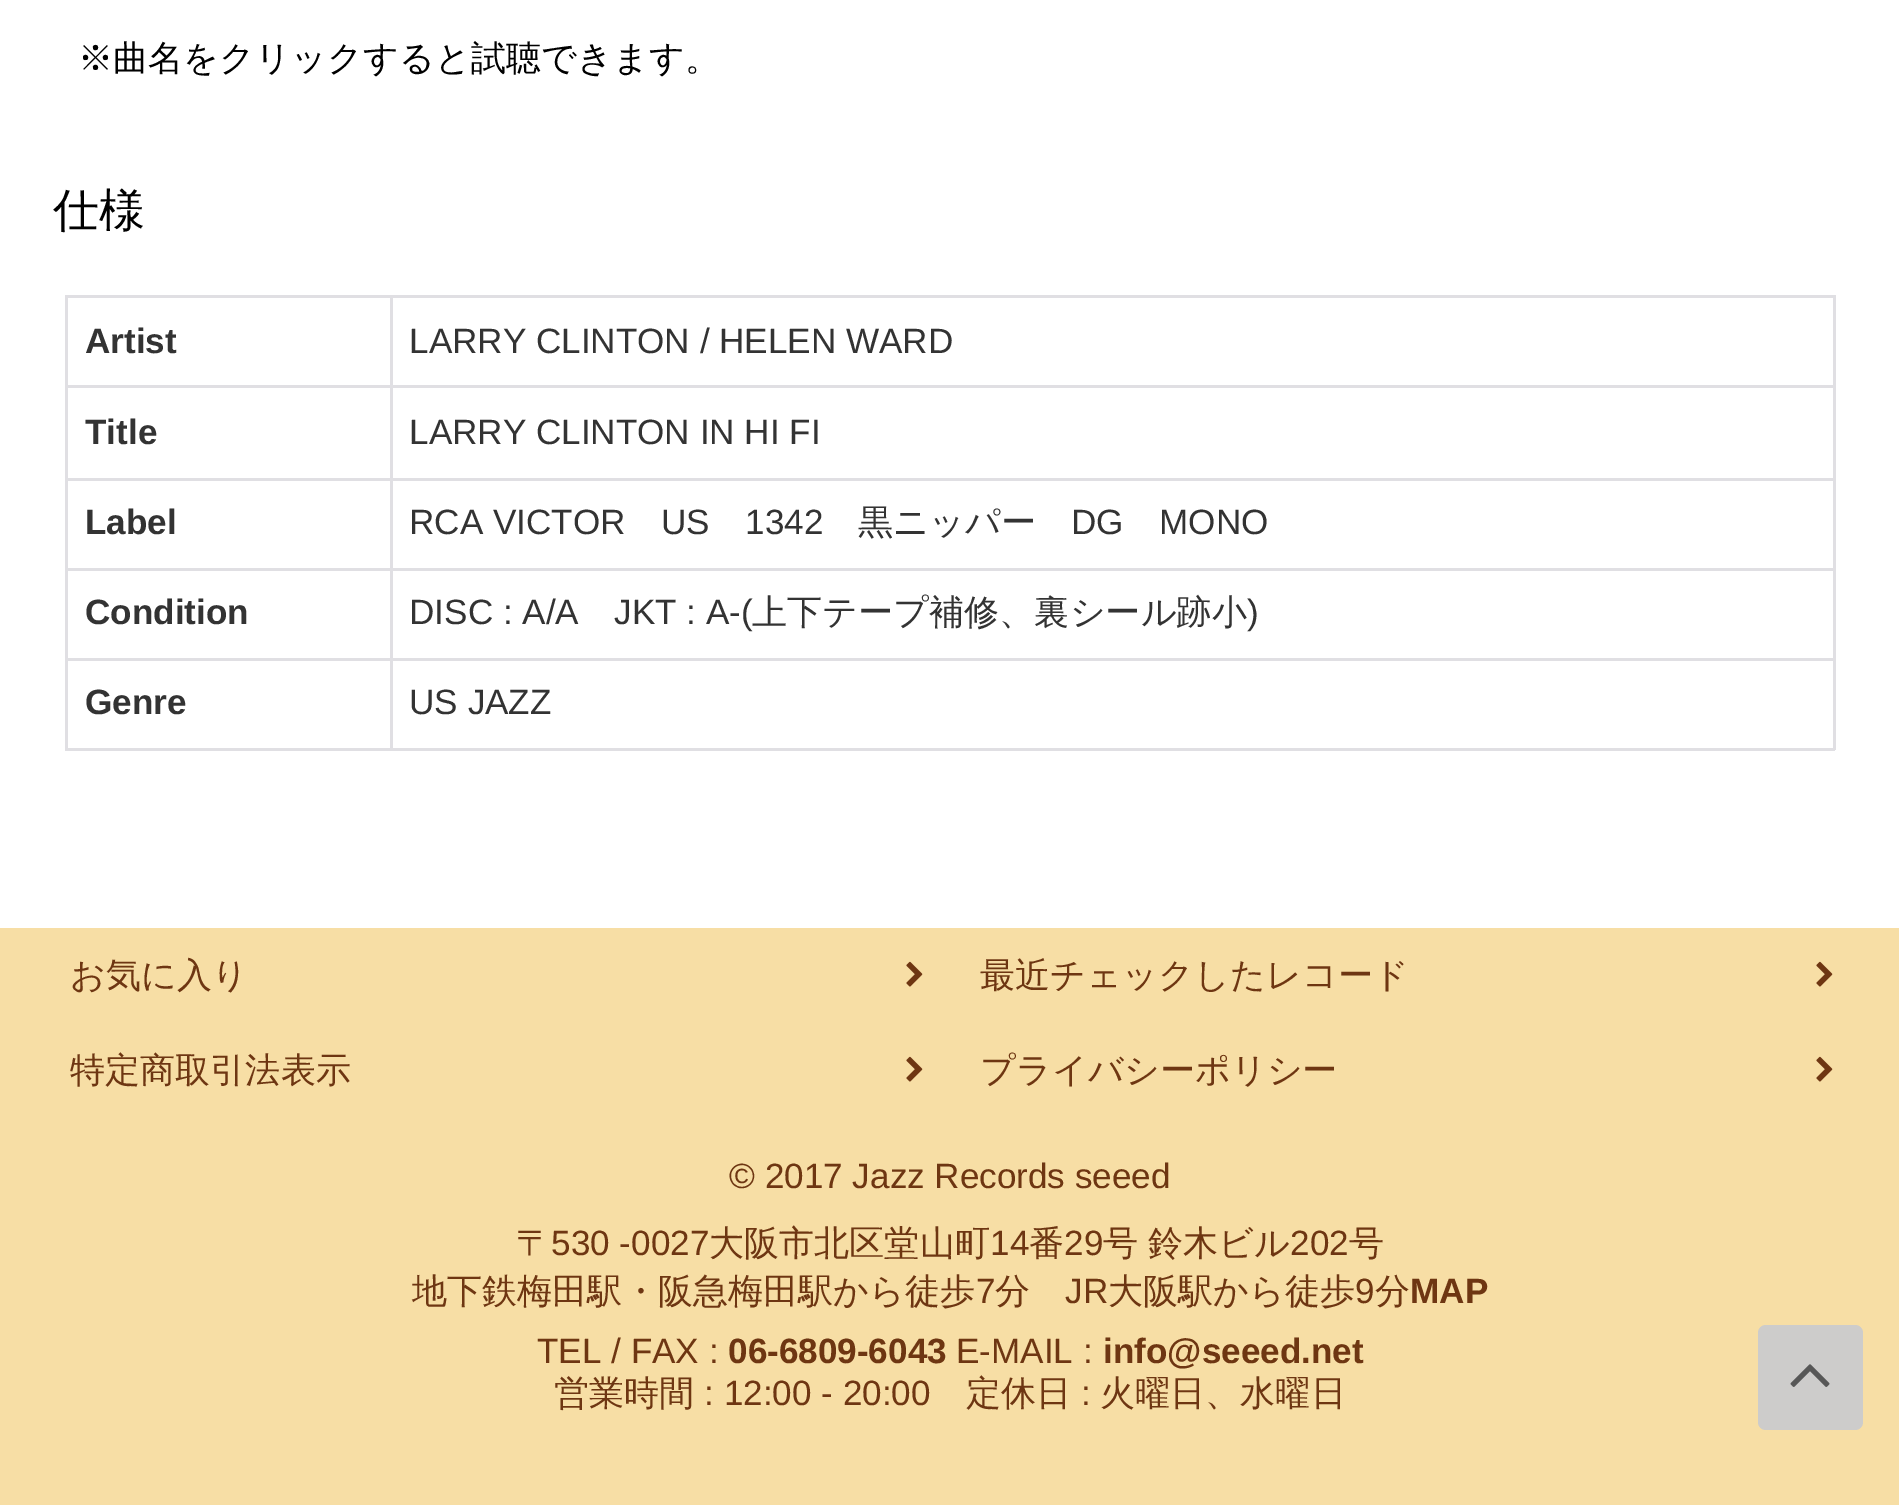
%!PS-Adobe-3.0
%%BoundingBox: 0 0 1899 1505
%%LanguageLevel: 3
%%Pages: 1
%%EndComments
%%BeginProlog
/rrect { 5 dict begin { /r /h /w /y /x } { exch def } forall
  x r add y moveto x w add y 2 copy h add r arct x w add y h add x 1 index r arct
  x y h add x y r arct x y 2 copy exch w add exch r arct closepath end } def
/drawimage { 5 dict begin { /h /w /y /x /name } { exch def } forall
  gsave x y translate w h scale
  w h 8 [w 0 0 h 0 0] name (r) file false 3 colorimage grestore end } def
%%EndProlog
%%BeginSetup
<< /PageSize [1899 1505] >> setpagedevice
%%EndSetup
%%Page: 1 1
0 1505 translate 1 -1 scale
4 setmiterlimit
1 setgray
0 0 1899 1505 rectfill
0.878 0.875 0.89 setrgbcolor
390 295 1445 3 rectfill
390 385 1445 3 rectfill
390 478 1445 3 rectfill
390 568 1445 3 rectfill
390 658 1445 3 rectfill
1833 658 3 92 rectfill
390 748 1445 3 rectfill
390 658 3 92 rectfill
65 658 328 3 rectfill
390 568 3 92 rectfill
65 568 328 3 rectfill
390 478 3 92 rectfill
65 478 328 3 rectfill
390 385 3 95 rectfill
65 385 328 3 rectfill
390 295 3 93 rectfill
65 295 328 3 rectfill
65 748 328 3 rectfill
65 658 3 92 rectfill
65 568 3 92 rectfill
65 478 3 92 rectfill
65 385 3 95 rectfill
65 295 3 93 rectfill
1833 568 3 92 rectfill
1833 478 3 92 rectfill
1833 385 3 95 rectfill
1833 295 3 93 rectfill
0.969 0.871 0.647 setrgbcolor
0 928 1899 577 rectfill
(images/1.raw) 906 961 17 26 drawimage
(images/1.raw) 1816 961 17 26 drawimage
(images/1.raw) 906 1056 17 26 drawimage
(images/1.raw) 1816 1056 17 26 drawimage
0.804 0.8 0.796 setrgbcolor
1758 1325 105 105 8 rrect fill
(images/2.raw) 1790 1364 40 23 drawimage
/WenQuanYiZenHei-Medium [35.1 0 0 -35.1 0 0] selectfont
0 setgray
78 70 moveto (※曲名をクリックすると試聴できます。) show
/WenQuanYiZenHei-Medium [46 0 0 -46 0 0] selectfont
53 226 moveto (仕様) show
/LiberationSans-Bold [35.1 0 0 -35.1 0 0] selectfont
0.2 setgray
85 353 moveto (Artist) show
/LiberationSans-Regular [35.1 0 0 -35.1 0 0] selectfont
409 353 moveto (LARRY CLINTON / HELEN WARD) show
/LiberationSans-Bold [35.1 0 0 -35.1 0 0] selectfont
85 444 moveto (Title) show
/LiberationSans-Regular [35.1 0 0 -35.1 0 0] selectfont
409 444 moveto (LARRY CLINTON IN HI FI) show
/LiberationSans-Bold [35.1 0 0 -35.1 0 0] selectfont
85 534 moveto (Label) show
/LiberationSans-Regular [35.1 0 0 -35.1 0 0] selectfont
409 534 moveto (RCA VICTOR) show
661 534 moveto (US) show
745 534 moveto (1342) show
/WenQuanYiZenHei-Medium [35.1 0 0 -35.1 0 0] selectfont
858 534 moveto (黒ニッパー) show
/LiberationSans-Regular [35.1 0 0 -35.1 0 0] selectfont
1071 534 moveto (DG) show
1159 534 moveto (MONO) show
/LiberationSans-Bold [35.1 0 0 -35.1 0 0] selectfont
85 624 moveto (Condition) show
/LiberationSans-Regular [35.1 0 0 -35.1 0 0] selectfont
409 624 moveto (DISC : A/A) show
614 624 moveto (JKT : A-\() show
/WenQuanYiZenHei-Medium [35.1 0 0 -35.1 0 0] selectfont
752 624 moveto (上下テープ補修、裏シール跡小) show
/LiberationSans-Regular [35.1 0 0 -35.1 0 0] selectfont
1247 624 moveto (\)) show
/LiberationSans-Bold [35.1 0 0 -35.1 0 0] selectfont
85 714 moveto (Genre) show
/LiberationSans-Regular [35.1 0 0 -35.1 0 0] selectfont
409 714 moveto (US JAZZ) show
/WenQuanYiZenHei-Medium [35.1 0 0 -35.1 0 0] selectfont
0.431 0.212 0.071 setrgbcolor
70 987 moveto (お気に入り) show
980 987 moveto (最近チェックしたレコード) show
70 1082 moveto (特定商取引法表示) show
980 1082 moveto (プライバシーポリシー) show
/LiberationSans-Regular [35.1 0 0 -35.1 0 0] selectfont
729 1188 moveto (© 2017 Jazz Records seeed) show
/WenQuanYiZenHei-Medium [35.1 0 0 -35.1 0 0] selectfont
516 1255 moveto (〒) show
/LiberationSans-Regular [35.1 0 0 -35.1 0 0] selectfont
551 1255 moveto (530 -0027) show
/WenQuanYiZenHei-Medium [35.1 0 0 -35.1 0 0] selectfont
709 1255 moveto (大阪市北区堂山町) show
/LiberationSans-Regular [35.1 0 0 -35.1 0 0] selectfont
990 1255 moveto (14) show
/WenQuanYiZenHei-Medium [35.1 0 0 -35.1 0 0] selectfont
1029 1255 moveto (番) show
/LiberationSans-Regular [35.1 0 0 -35.1 0 0] selectfont
1064 1255 moveto (29) show
/WenQuanYiZenHei-Medium [35.1 0 0 -35.1 0 0] selectfont
1103 1255 moveto -1 0 32 (号 鈴木ビル) widthshow
/LiberationSans-Regular [35.1 0 0 -35.1 0 0] selectfont
1290 1255 moveto (202) show
/WenQuanYiZenHei-Medium [35.1 0 0 -35.1 0 0] selectfont
1349 1255 moveto (号) show
412 1303 moveto (地下鉄梅田駅・阪急梅田駅から徒歩) show
/LiberationSans-Regular [35.1 0 0 -35.1 0 0] selectfont
976 1303 moveto (7) show
/WenQuanYiZenHei-Medium [35.1 0 0 -35.1 0 0] selectfont
995 1303 moveto (分) show
/LiberationSans-Regular [35.1 0 0 -35.1 0 0] selectfont
1065 1303 moveto (JR) show
/WenQuanYiZenHei-Medium [35.1 0 0 -35.1 0 0] selectfont
1108 1303 moveto (大阪駅から徒歩) show
/LiberationSans-Regular [35.1 0 0 -35.1 0 0] selectfont
1355 1303 moveto (9) show
/WenQuanYiZenHei-Medium [35.1 0 0 -35.1 0 0] selectfont
1375 1303 moveto (分) show
/LiberationSans-Bold [35.1 0 0 -35.1 0 0] selectfont
1410 1303 moveto (MAP) show
/LiberationSans-Regular [35.1 0 0 -35.1 0 0] selectfont
537 1363 moveto (TEL / FAX :) show
/LiberationSans-Bold [35.1 0 0 -35.1 0 0] selectfont
728 1363 moveto (06-6809-6043) show
/LiberationSans-Regular [35.1 0 0 -35.1 0 0] selectfont
956 1363 moveto (E-MAIL :) show
/LiberationSans-Bold [35.1 0 0 -35.1 0 0] selectfont
1103 1363 moveto (info@seeed.net) show
/WenQuanYiZenHei-Medium [35.1 0 0 -35.1 0 0] selectfont
554 1405 moveto (営業時間) show
/LiberationSans-Regular [35.1 0 0 -35.1 0 0] selectfont
704 1405 moveto (: 12:00 - 20:00) show
/WenQuanYiZenHei-Medium [35.1 0 0 -35.1 0 0] selectfont
966 1405 moveto (定休日) show
/LiberationSans-Regular [35.1 0 0 -35.1 0 0] selectfont
1081 1405 moveto (:) show
/WenQuanYiZenHei-Medium [35.1 0 0 -35.1 0 0] selectfont
1100 1405 moveto (火曜日、水曜日) show
showpage
%%EOF
